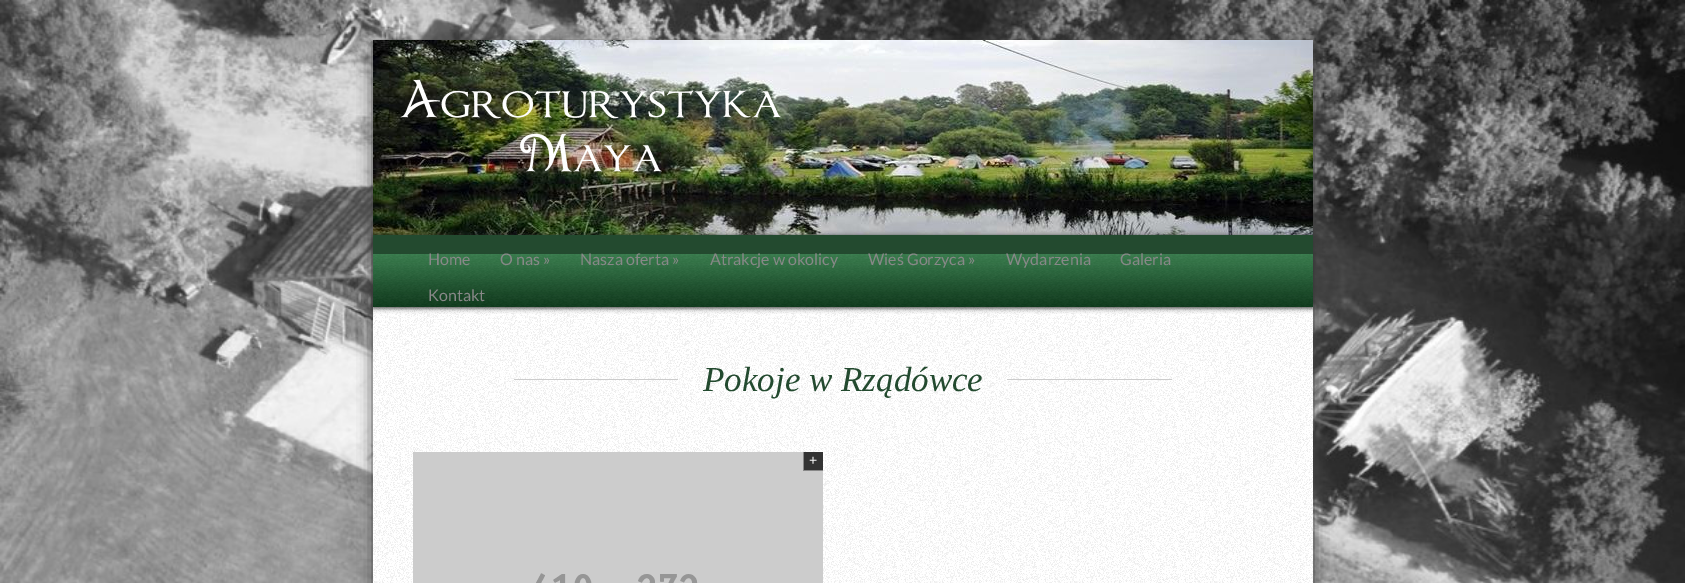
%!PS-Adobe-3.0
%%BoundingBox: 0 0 1685 583
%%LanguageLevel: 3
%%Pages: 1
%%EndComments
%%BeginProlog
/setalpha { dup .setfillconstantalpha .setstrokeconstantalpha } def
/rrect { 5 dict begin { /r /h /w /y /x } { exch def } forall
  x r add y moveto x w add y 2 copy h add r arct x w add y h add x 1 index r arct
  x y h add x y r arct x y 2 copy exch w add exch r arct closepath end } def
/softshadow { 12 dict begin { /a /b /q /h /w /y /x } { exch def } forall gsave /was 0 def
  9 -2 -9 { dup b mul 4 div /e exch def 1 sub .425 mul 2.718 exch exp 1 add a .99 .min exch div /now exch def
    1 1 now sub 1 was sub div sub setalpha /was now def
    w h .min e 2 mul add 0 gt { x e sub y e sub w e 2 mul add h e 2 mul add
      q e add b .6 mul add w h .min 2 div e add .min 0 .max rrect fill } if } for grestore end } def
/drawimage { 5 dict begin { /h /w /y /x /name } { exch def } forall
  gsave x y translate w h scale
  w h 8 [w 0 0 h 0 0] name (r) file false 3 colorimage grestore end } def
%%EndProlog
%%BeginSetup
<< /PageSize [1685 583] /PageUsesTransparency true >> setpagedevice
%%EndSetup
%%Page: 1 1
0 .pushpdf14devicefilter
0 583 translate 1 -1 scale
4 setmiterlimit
1 setgray
0 0 1685 583 rectfill
(images/1.raw) 0 0 1685 583 drawimage
0.267 setgray
373 45 940 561 0 7.5 1 softshadow
(images/2.raw) 373 307 940 276 drawimage
(images/3.raw) 373 40 940 195 drawimage
(images/4.raw) 400 79 382 93 drawimage
0.2 setgray
373 236 940 72 0 2.5 1 softshadow
0.137 0.29 0.184 setrgbcolor
373 235 940 19 rectfill
(images/5.raw) 373 254 940 53 drawimage
0.8 setgray
514 379 658 1 rectfill
(images/6.raw) 678 362 329 35 drawimage
(images/7.raw) 413 452 410 131 drawimage
0.2 setgray
804 452 19 18 rectfill
0.533 setgray
803 470 20 1 rectfill
803 452 1 19 rectfill
/Lato-Regular [16 0 0 -16 0 0] selectfont
428 265 moveto (Home) show
500 265 moveto (O nas ») show
580 265 moveto (Nasza oferta ») show
710 265 moveto (Atrakcje w okolicy) show
868 265 moveto (Wieś Gorzyca ») show
1006 265 moveto (Wydarzenia) show
1120 265 moveto (Galeria) show
428 301 moveto (Kontakt) show
/LiberationSerif-Italic [35 0 0 -35 0 0] selectfont
0.137 0.29 0.184 setrgbcolor
703 391 moveto (Pokoje w Rządówce) show
/Lato-Regular [14 0 0 -14 0 0] selectfont
1 setgray
809 465 moveto (+) show
.poppdf14devicefilter showpage
%%EOF
